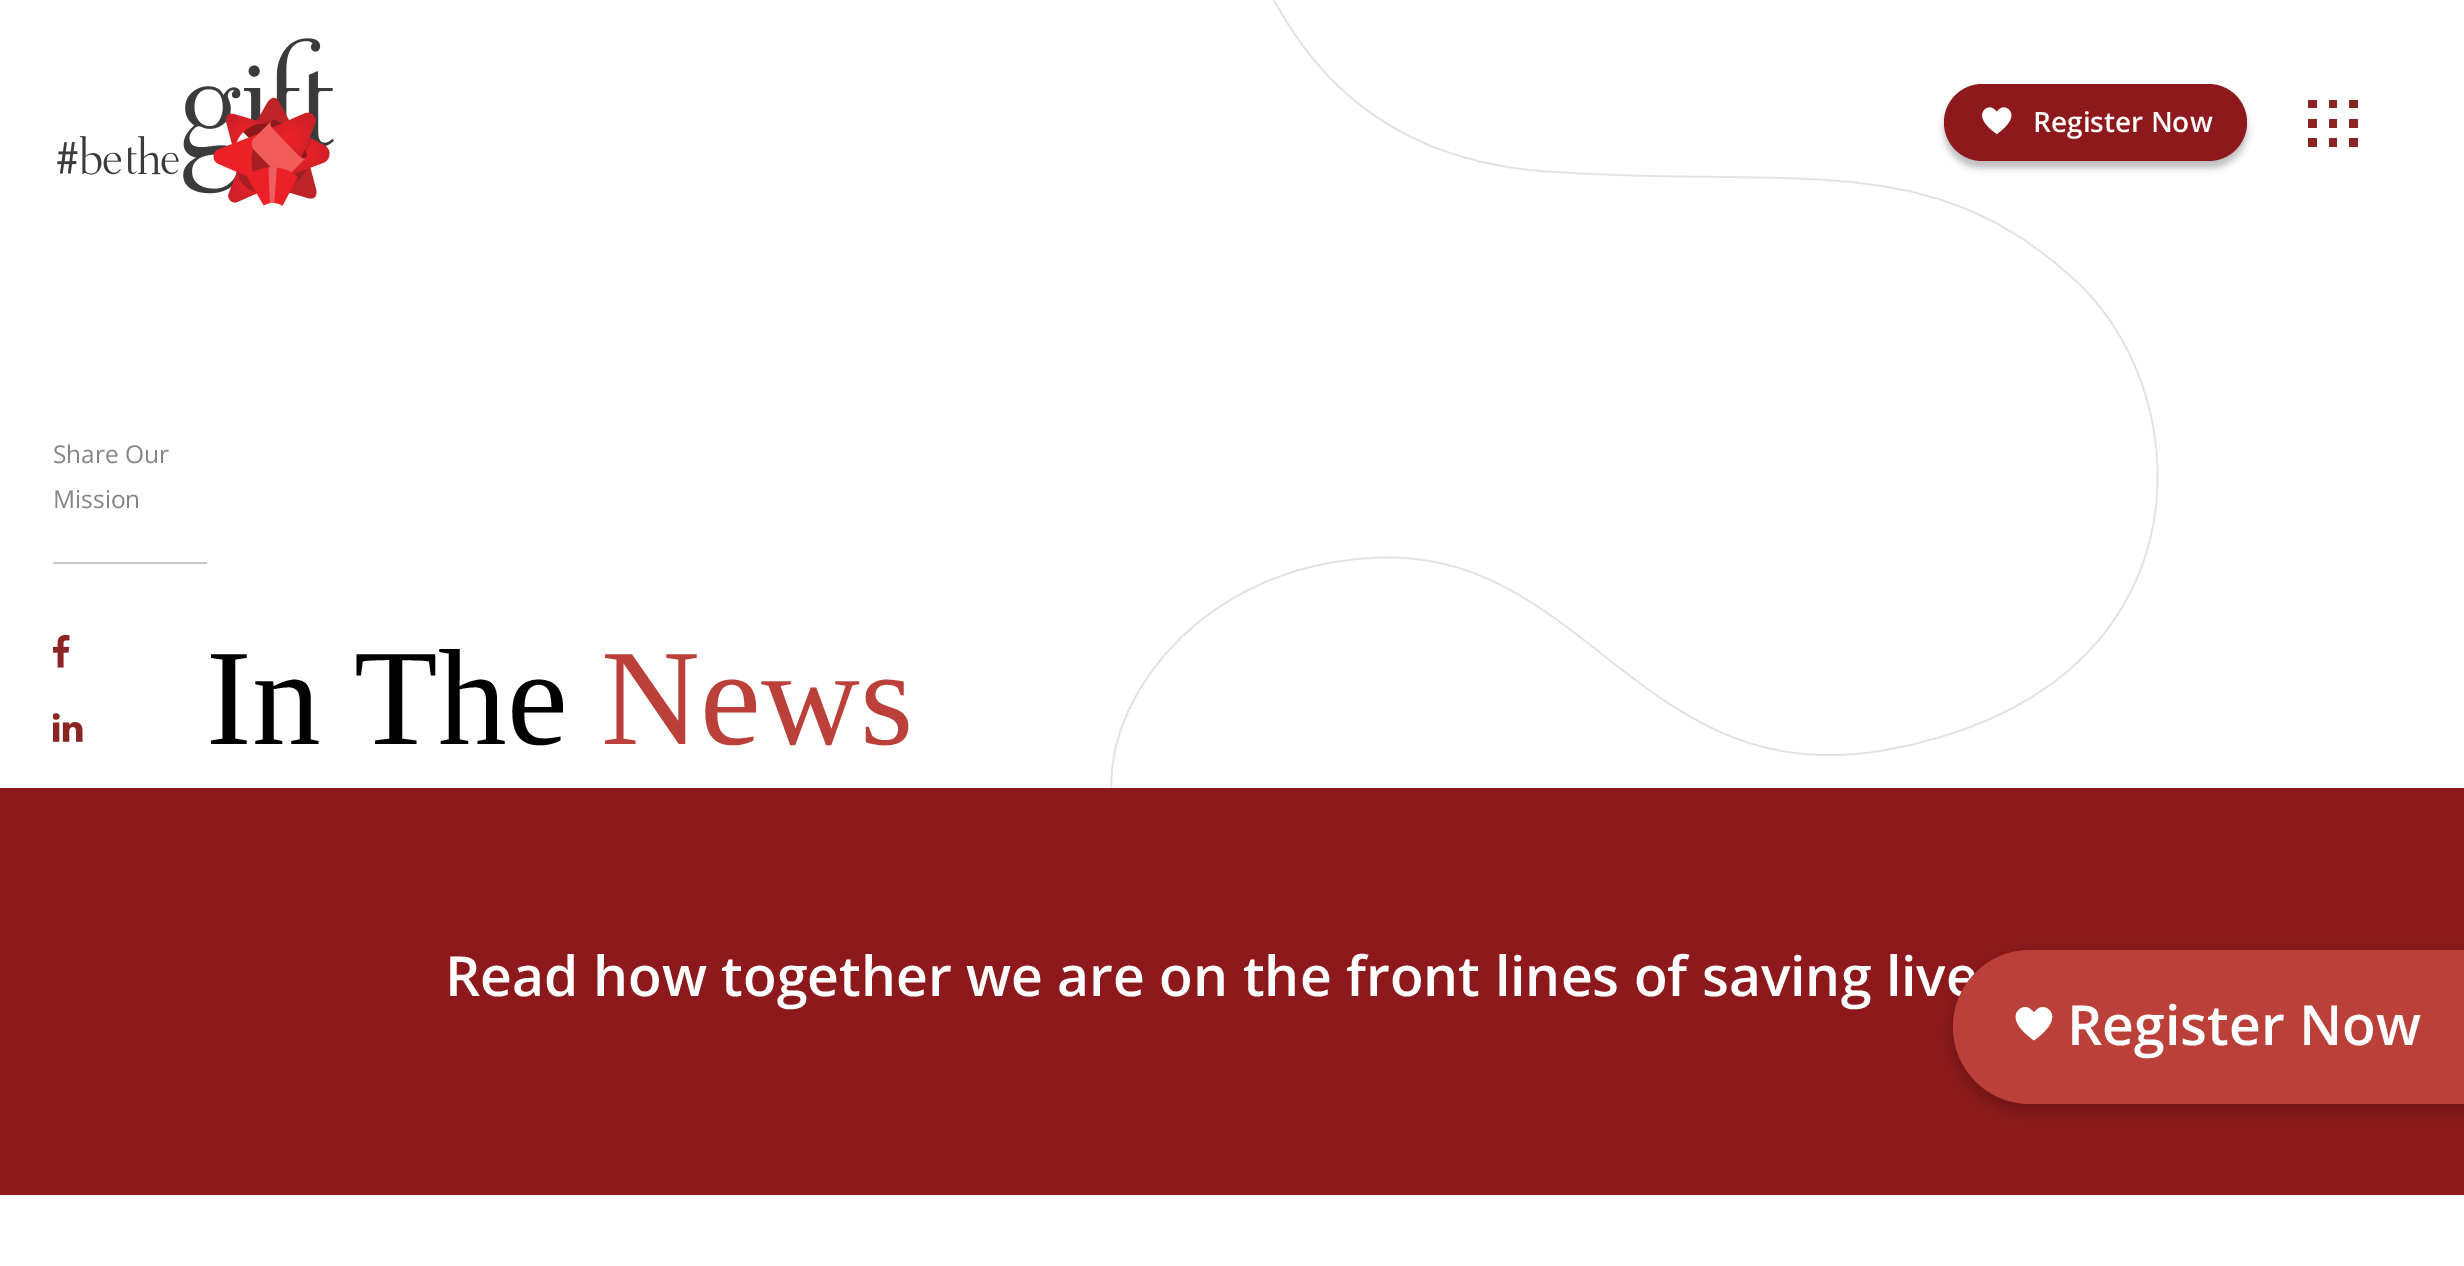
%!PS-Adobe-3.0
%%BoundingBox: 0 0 2464 1266
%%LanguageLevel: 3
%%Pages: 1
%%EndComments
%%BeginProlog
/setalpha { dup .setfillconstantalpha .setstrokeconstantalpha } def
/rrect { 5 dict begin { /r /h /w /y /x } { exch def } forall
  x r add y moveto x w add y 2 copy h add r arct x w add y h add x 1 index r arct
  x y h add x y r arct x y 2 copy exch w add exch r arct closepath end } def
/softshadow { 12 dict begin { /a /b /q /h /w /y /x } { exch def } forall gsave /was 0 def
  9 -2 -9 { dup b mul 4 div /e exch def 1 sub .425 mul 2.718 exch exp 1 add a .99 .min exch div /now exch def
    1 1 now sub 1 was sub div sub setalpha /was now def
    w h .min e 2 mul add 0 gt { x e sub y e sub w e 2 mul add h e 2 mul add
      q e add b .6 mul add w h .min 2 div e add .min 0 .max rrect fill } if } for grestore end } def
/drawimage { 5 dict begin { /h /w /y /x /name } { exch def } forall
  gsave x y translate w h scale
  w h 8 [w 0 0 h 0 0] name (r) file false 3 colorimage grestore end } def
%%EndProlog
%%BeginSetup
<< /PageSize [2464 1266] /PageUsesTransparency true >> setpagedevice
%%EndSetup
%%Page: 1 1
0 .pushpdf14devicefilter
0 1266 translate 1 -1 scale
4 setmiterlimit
1 setgray
0 0 2464 1266 rectfill
0.886 setgray
1.7 setlinewidth
newpath 1111.5 787.5 moveto 1107.5 691.5 1211.5 557.5 1388.5 557.5 curveto 1587.5 557.5 1645.5 791 1882.5 750.5 curveto 2209.5 694 2202.5 402.5 2080 285 curveto 1932 143 1794 190 1541 171 curveto 1366 157.5 1301 48 1274 0.5 curveto stroke
(images/1.raw) 57 38 277 168 drawimage
0 setgray
1944 91 303 77 38.5 3.5 0.25 softshadow
0.553 0.098 0.11 setrgbcolor
1944 84 303 77 38.5 rrect fill
(images/2.raw) 1982 107 30 28 drawimage
0.553 0.141 0.141 setrgbcolor
2308 100 9 8 rectfill
2329 100 8 8 rectfill
2349 100 9 8 rectfill
2308 119 9 9 rectfill
2329 119 8 9 rectfill
2349 119 9 9 rectfill
2308 138 9 9 rectfill
2329 138 8 9 rectfill
2349 138 9 9 rectfill
0.776 setgray
53 562 154 2 rectfill
(images/3.raw) 53 635 17 33 drawimage
(images/4.raw) 53 713 30 29 drawimage
0.553 0.098 0.11 setrgbcolor
0 788 2464 407 rectfill
0 setgray
1953 957 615 154 77 9 0.25 softshadow
/OpenSans-SemiBold [28 0 0 -28 0 0] selectfont
1 setgray
2033 132 moveto (Register Now) show
/OpenSans-Regular [24.5 0 0 -24.5 0 0] selectfont
0.522 setgray
53 463 moveto (Share Our) show
53 508 moveto (Mission) show
/LiberationSerif-Regular [137 0 0 -137 0 0] selectfont
0 setgray
206 744 moveto (In The) show
0.737 0.251 0.227 setrgbcolor
601 744 moveto (News) show
/OpenSans-SemiBold [55.25 0 0 -55.25 0 0] selectfont
1 setgray
445 996 moveto (Read how together we are on the front lines of saving live) show
0.737 0.251 0.227 setrgbcolor
1953 950 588 154 77 rrect fill
(images/5.raw) 2015 1006 38 35 drawimage
1 setgray
2067 1045 moveto (Register Now) show
.poppdf14devicefilter showpage
%%EOF
